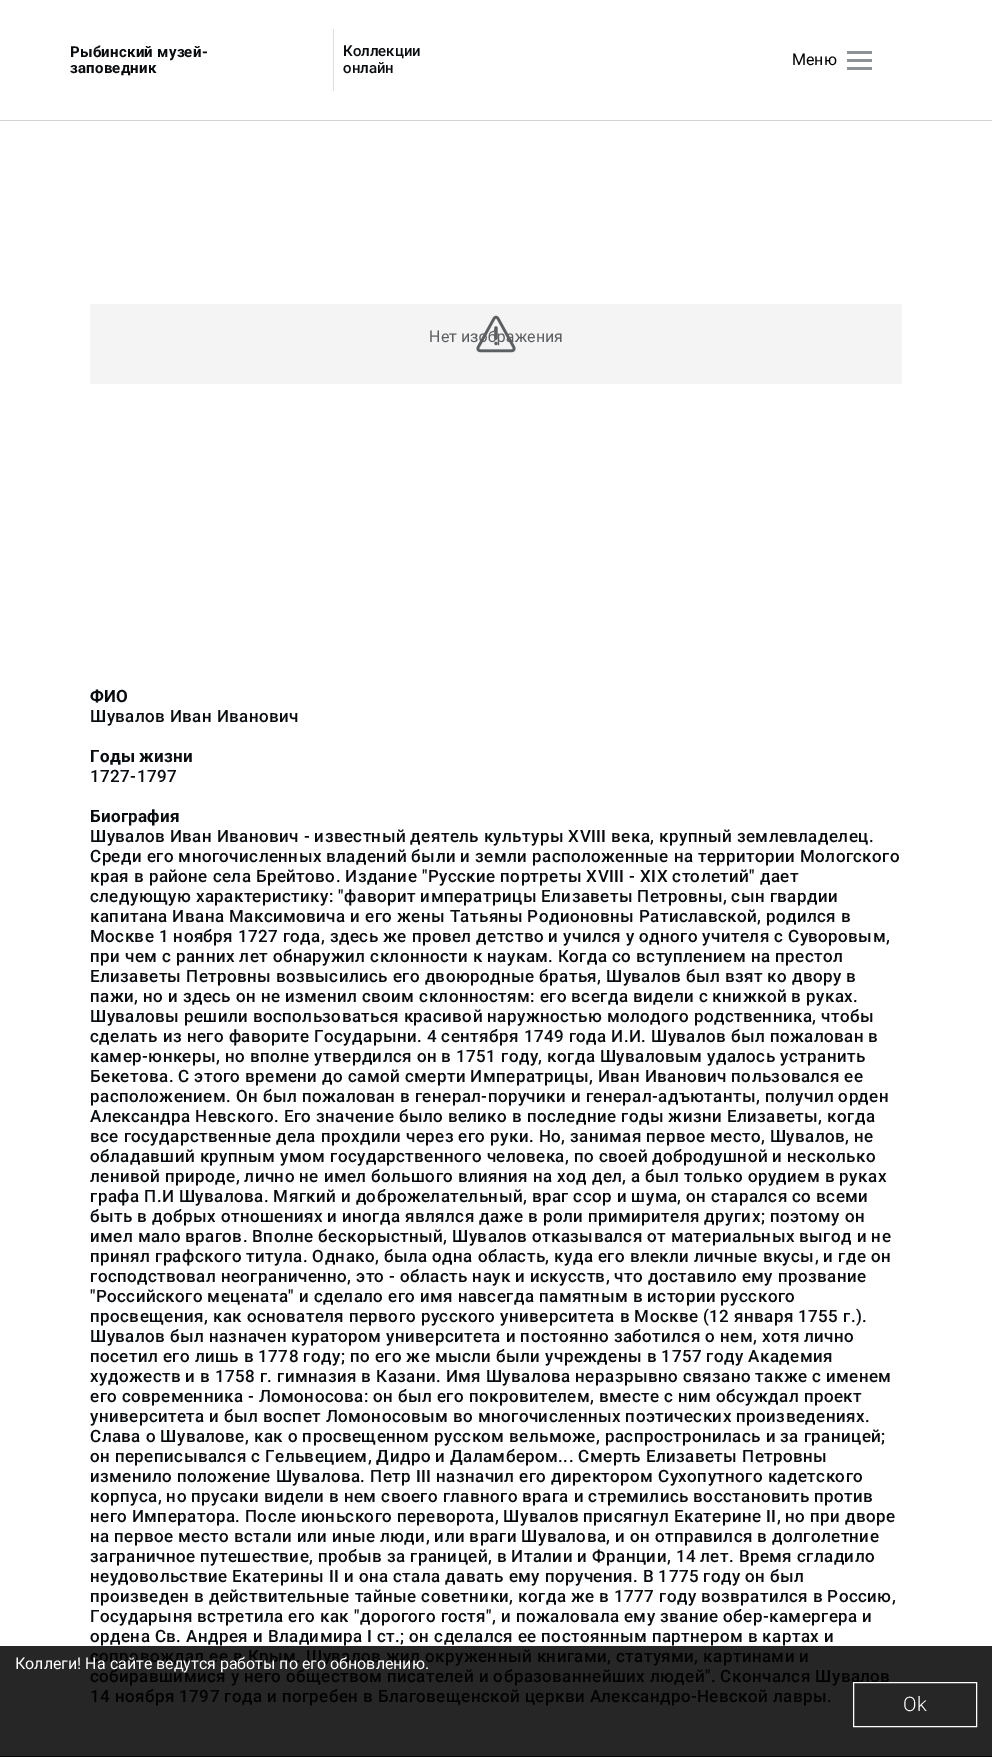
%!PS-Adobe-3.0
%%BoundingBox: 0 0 992 1757
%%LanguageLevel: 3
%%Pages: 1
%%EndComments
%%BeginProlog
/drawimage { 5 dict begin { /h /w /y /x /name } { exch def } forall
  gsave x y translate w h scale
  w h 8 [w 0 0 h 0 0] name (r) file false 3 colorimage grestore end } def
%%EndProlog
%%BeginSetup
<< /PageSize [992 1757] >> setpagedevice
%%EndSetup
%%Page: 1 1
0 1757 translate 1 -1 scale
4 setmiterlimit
1 setgray
0 0 992 1757 rectfill
0.149 setgray
0 1646 992 110 rectfill
0.827 setgray
0 120 992 1 rectfill
0.871 setgray
333 29 1 62 rectfill
0.557 0.569 0.584 setrgbcolor
847 51 25 3 rectfill
847 59 25 3 rectfill
847 67 25 3 rectfill
0.957 0.957 0.961 setrgbcolor
90 304 812 80 rectfill
0.02 setgray
0 1756 992 1 rectfill
/Roboto-Bold [15 0 0 -15 0 0] selectfont
0.039 0.051 0.063 setrgbcolor
70 57 moveto 0.25 0 (Рыбинский музей-) ashow
70 73 moveto 0.25 0 (заповедник) ashow
/Roboto-Medium [15 0 0 -15 0 0] selectfont
343 56 moveto (Коллекции) show
343 73 moveto (онлайн) show
/Roboto-Regular [16 0 0 -16 0 0] selectfont
0.008 setgray
792 65 moveto (Меню) show
0.361 0.373 0.384 setrgbcolor
429 342 moveto 0.1 0 (Нет изображения) ashow
(images/1.raw) 476 315 40 38 drawimage
/Roboto-Bold [17 0 0 -17 0 0] selectfont
0.039 0.051 0.063 setrgbcolor
90 702 moveto 0.25 0 (ФИО) ashow
/Roboto-Medium [17 0 0 -17 0 0] selectfont
90 722 moveto 0.42 0 (Шувалов Иван Иванович) ashow
/Roboto-Bold [17 0 0 -17 0 0] selectfont
90 762 moveto 0.25 0 (Годы жизни) ashow
/Roboto-Medium [17 0 0 -17 0 0] selectfont
90 782 moveto 0.42 0 (1727-1797) ashow
/Roboto-Bold [17 0 0 -17 0 0] selectfont
90 822 moveto 0.25 0 (Биография) ashow
/Roboto-Medium [17 0 0 -17 0 0] selectfont
90 842 moveto 0.42 0 (Шувалов Иван Иванович - известный деятель культуры XVIII века, крупный землевладелец.) ashow
90 862 moveto 0.42 0 (Среди его многочисленных владений были и земли расположенные на территории Мологского) ashow
90 882 moveto 0.42 0 (края в районе села Брейтово. Издание "Русские портреты XVIII - XIX столетий" дает) ashow
90 902 moveto 0.42 0 (следующую характеристику: "фаворит императрицы Елизаветы Петровны, сын гвардии) ashow
90 922 moveto 0.42 0 (капитана Ивана Максимовича и его жены Татьяны Родионовны Ратиславской, родился в) ashow
90 942 moveto 0.42 0 (Москве 1 ноября 1727 года, здесь же провел детство и учился у одного учителя с Суворовым,) ashow
90 962 moveto 0.42 0 (при чем с ранних лет обнаружил склонности к наукам. Когда со вступлением на престол) ashow
90 982 moveto 0.42 0 (Елизаветы Петровны возвысились его двоюродные братья, Шувалов был взят ко двору в) ashow
90 1002 moveto 0.42 0 (пажи, но и здесь он не изменил своим склонностям: его всегда видели с книжкой в руках.) ashow
90 1022 moveto 0.42 0 (Шуваловы решили воспользоваться красивой наружностью молодого родственника, чтобы) ashow
90 1042 moveto 0.42 0 (сделать из него фаворите Государыни. 4 сентября 1749 года И.И. Шувалов был пожалован в) ashow
90 1062 moveto 0.42 0 (камер-юнкеры, но вполне утвердился он в 1751 году, когда Шуваловым удалось устранить) ashow
90 1082 moveto 0.42 0 (Бекетова. С этого времени до самой смерти Императрицы, Иван Иванович пользовался ее) ashow
90 1102 moveto 0.42 0 (расположением. Он был пожалован в генерал-поручики и генерал-адъютанты, получил орден) ashow
90 1122 moveto 0.42 0 (Александра Невского. Его значение было велико в последние годы жизни Елизаветы, когда) ashow
90 1142 moveto 0.42 0 (все государственные дела прохдили через его руки. Но, занимая первое место, Шувалов, не) ashow
90 1162 moveto 0.42 0 (обладавший крупным умом государственного человека, по своей добродушной и несколько) ashow
90 1182 moveto 0.42 0 (ленивой природе, лично не имел большого влияния на ход дел, а был только орудием в руках) ashow
90 1202 moveto 0.42 0 (графа П.И Шувалова. Мягкий и доброжелательный, враг ссор и шума, он старался со всеми) ashow
90 1222 moveto 0.42 0 (быть в добрых отношениях и иногда являлся даже в роли примирителя других; поэтому он) ashow
90 1242 moveto 0.42 0 (имел мало врагов. Вполне бескорыстный, Шувалов отказывался от материальных выгод и не) ashow
90 1262 moveto 0.42 0 (принял графского титула. Однако, была одна область, куда его влекли личные вкусы, и где он) ashow
90 1282 moveto 0.42 0 (господствовал неограниченно, это - область наук и искусств, что доставило ему прозвание) ashow
90 1302 moveto 0.42 0 ("Российского мецената" и сделало его имя навсегда памятным в истории русского) ashow
90 1322 moveto 0.42 0 (просвещения, как основателя первого русского университета в Москве \(12 января 1755 г.\).) ashow
90 1342 moveto 0.42 0 (Шувалов был назначен куратором университета и постоянно заботился о нем, хотя лично) ashow
90 1362 moveto 0.42 0 (посетил его лишь в 1778 году; по его же мысли были учреждены в 1757 году Академия) ashow
90 1382 moveto 0.42 0 (художеств и в 1758 г. гимназия в Казани. Имя Шувалова неразрывно связано также с именем) ashow
90 1402 moveto 0.42 0 (его современника - Ломоносова: он был его покровителем, вместе с ним обсуждал проект) ashow
90 1422 moveto 0.42 0 (университета и был воспет Ломоносовым во многочисленных поэтических произведениях.) ashow
90 1442 moveto 0.42 0 (Слава о Шувалове, как о просвещенном русском вельможе, распростронилась и за границей;) ashow
90 1462 moveto 0.42 0 (он переписывался с Гельвецием, Дидро и Даламбером... Смерть Елизаветы Петровны) ashow
90 1482 moveto 0.42 0 (изменило положение Шувалова. Петр III назначил его директором Сухопутного кадетского) ashow
90 1502 moveto 0.42 0 (корпуса, но прусаки видели в нем своего главного врага и стремились восстановить против) ashow
90 1522 moveto 0.42 0 (него Императора. После июньского переворота, Шувалов присягнул Екатерине II, но при дворе) ashow
90 1542 moveto 0.42 0 (на первое место встали или иные люди, или враги Шувалова, и он отправился в долголетние) ashow
90 1562 moveto 0.42 0 (заграничное путешествие, пробыв за границей, в Италии и Франции, 14 лет. Время сгладило) ashow
90 1582 moveto 0.42 0 (неудовольствие Екатерины II и она стала давать ему поручения. В 1775 году он был) ashow
90 1602 moveto 0.42 0 (произведен в действительные тайные советники, когда же в 1777 году возвратился в Россию,) ashow
90 1622 moveto 0.42 0 (Государыня встретила его как "дорогого гостя", и пожаловала ему звание обер-камергера и) ashow
90 1642 moveto 0.42 0 (ордена Св. Андрея и Владимира I ст.; он сделался ее постоянным партнером в картах и) ashow
0.008 setgray
90 1662 moveto 0.42 0 (сопровождал ее в Крым. Шувалов жил окруженный книгами, статуями, картинами и) ashow
90 1682 moveto 0.42 0 (собиравшимися у него обществом писателей и образованнейших людей". Скончался Шувалов) ashow
90 1702 moveto 0.42 0 (14 ноября 1797 года и погребен в Благовещенской церкви Александро-Невской лавры.) ashow
/Roboto-Regular [16 0 0 -16 0 0] selectfont
1 setgray
15 1669 moveto (Коллеги! На сайте ведутся работы по его обновлению.) show
853.5 1682.5 123 44 rectstroke
/Roboto-Light [20 0 0 -20 0 0] selectfont
903 1711 moveto (Ok) show
showpage
%%EOF
